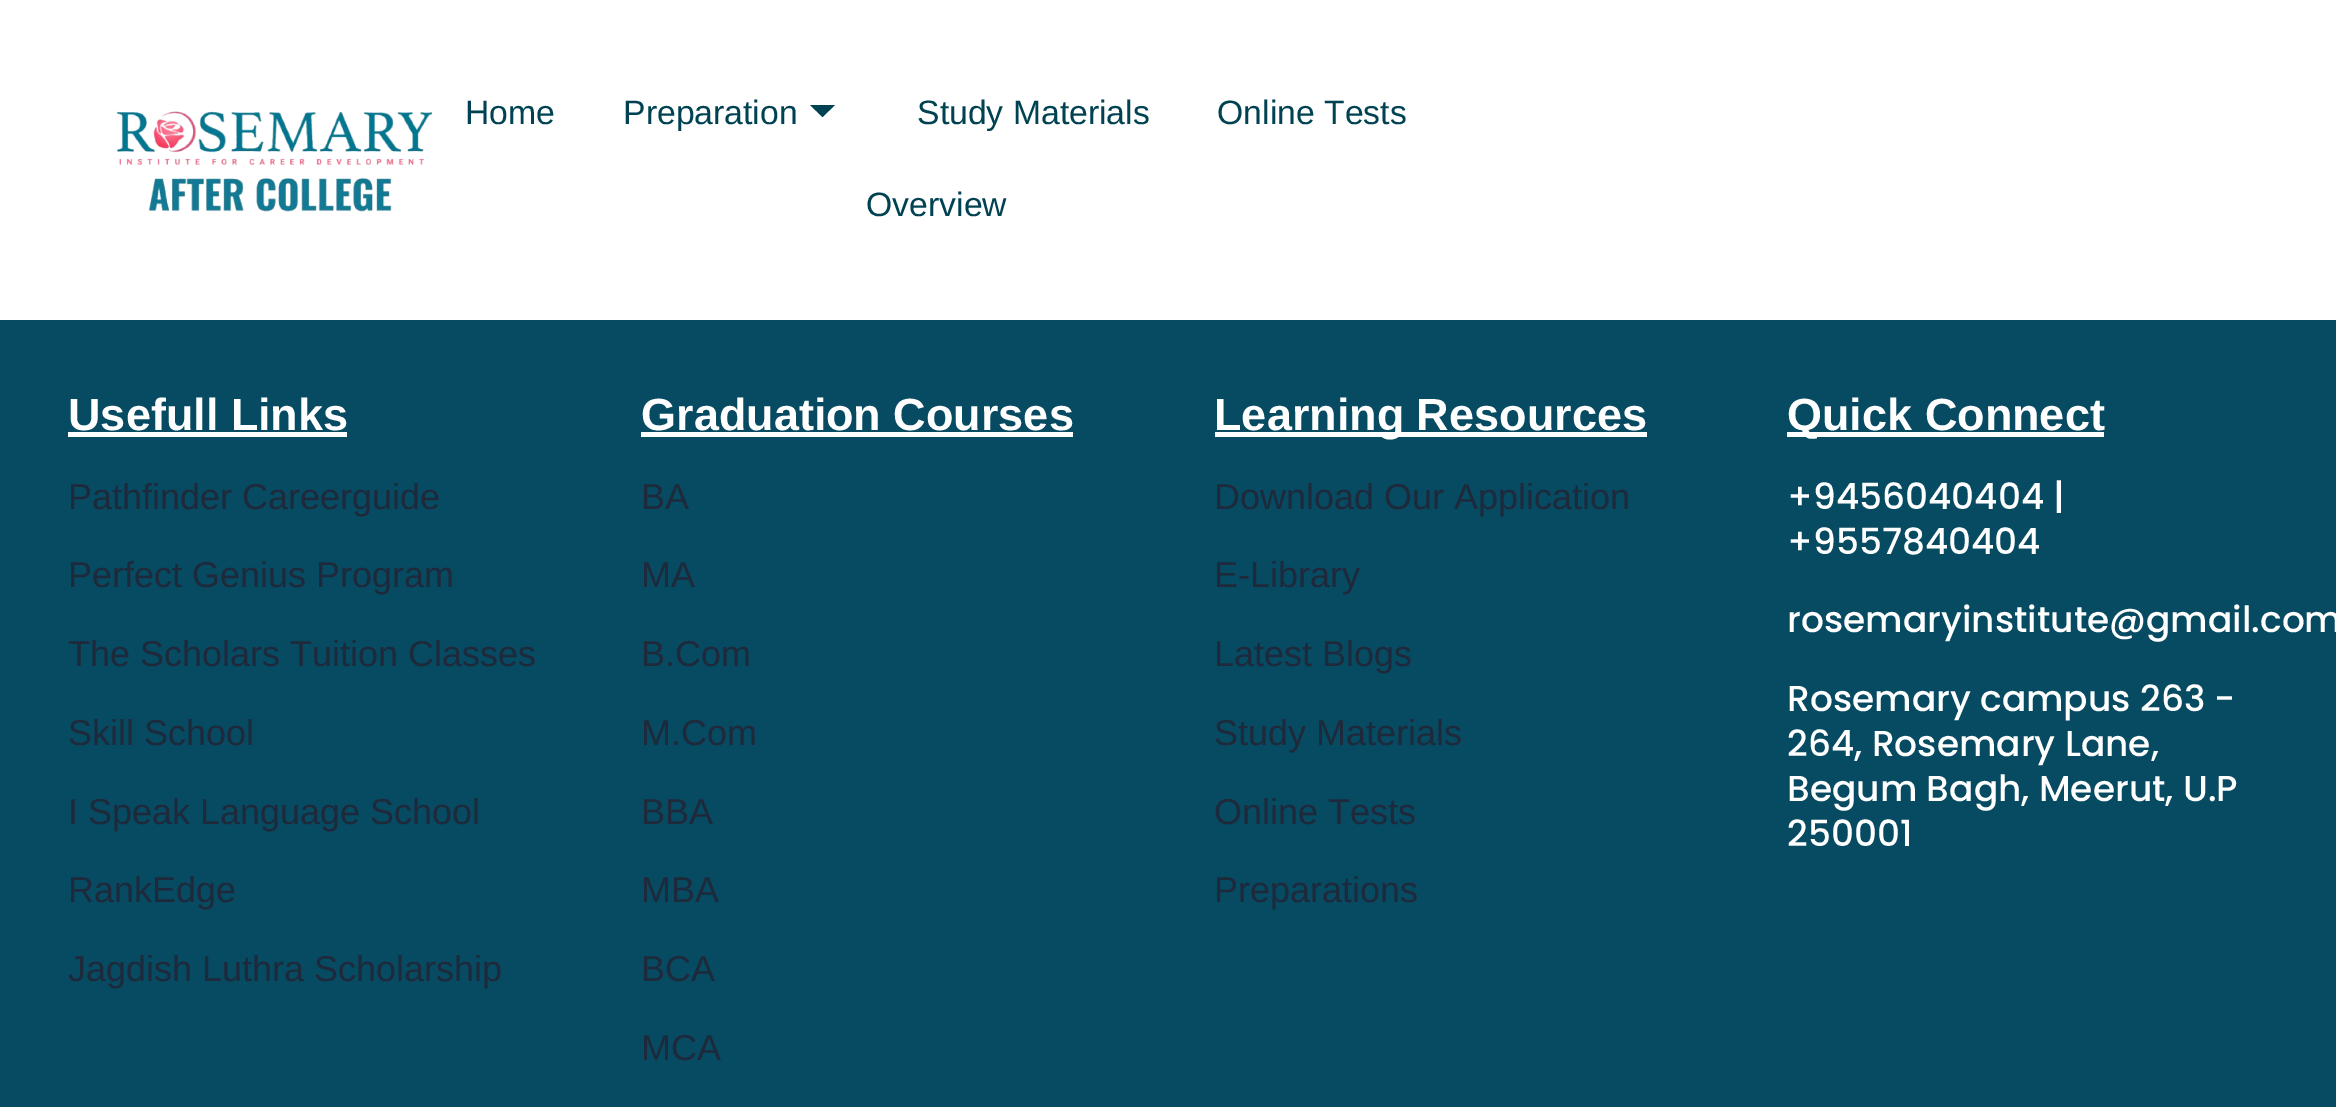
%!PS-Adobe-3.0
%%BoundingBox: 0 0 2336 1107
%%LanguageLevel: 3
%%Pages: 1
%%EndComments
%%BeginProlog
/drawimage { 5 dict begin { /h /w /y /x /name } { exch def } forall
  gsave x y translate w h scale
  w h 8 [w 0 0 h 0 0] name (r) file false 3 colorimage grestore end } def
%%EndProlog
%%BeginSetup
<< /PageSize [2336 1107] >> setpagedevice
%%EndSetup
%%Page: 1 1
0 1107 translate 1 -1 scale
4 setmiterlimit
1 setgray
0 0 2336 1107 rectfill
(images/1.raw) 116 111 317 101 drawimage
0 0.259 0.322 setrgbcolor
newpath 810 105 moveto 835 105 lineto 822.5 117 lineto closepath fill
0.024 0.294 0.384 setrgbcolor
0 320 2336 787 rectfill
1 setgray
68 432 279 5 rectfill
641 432 432 5 rectfill
1215 432 432 5 rectfill
1787 432 317 5 rectfill
/LiberationSans-Regular [33.75 0 0 -33.75 0 0] selectfont
0 0.259 0.322 setrgbcolor
465 124 moveto (Home) show
623 124 moveto (Preparation) show
917 124 moveto (Study Materials) show
1217 124 moveto (Online Tests) show
866 216 moveto (Overview) show
/LiberationSans-Bold [45 0 0 -45 0 0] selectfont
1 setgray
68 430 moveto (Usefull Links) show
/LiberationSans-Regular [36 0 0 -36 0 0] selectfont
0.118 0.161 0.231 setrgbcolor
68 509 moveto (Pathfinder Careerguide) show
68 587 moveto (Perfect Genius Program) show
68 666 moveto (The Scholars Tuition Classes) show
68 745 moveto (Skill School) show
68 824 moveto (I Speak Language School) show
68 902 moveto (RankEdge) show
68 981 moveto (Jagdish Luthra Scholarship) show
/LiberationSans-Bold [45 0 0 -45 0 0] selectfont
1 setgray
641 430 moveto (Graduation Courses) show
/LiberationSans-Regular [36 0 0 -36 0 0] selectfont
0.118 0.161 0.231 setrgbcolor
641 509 moveto (BA) show
641 587 moveto (MA) show
641 666 moveto (B.Com) show
641 745 moveto (M.Com) show
641 824 moveto (BBA) show
641 902 moveto (MBA) show
641 981 moveto (BCA) show
641 1060 moveto (MCA) show
/LiberationSans-Bold [45 0 0 -45 0 0] selectfont
1 setgray
1214 430 moveto (Learning Resources) show
/LiberationSans-Regular [36 0 0 -36 0 0] selectfont
0.118 0.161 0.231 setrgbcolor
1214 509 moveto (Download Our Application) show
1214 587 moveto (E-Library) show
1214 666 moveto (Latest Blogs) show
1214 745 moveto (Study Materials) show
1214 824 moveto (Online Tests) show
1214 902 moveto (Preparations) show
/LiberationSans-Bold [45 0 0 -45 0 0] selectfont
1 setgray
1787 430 moveto (Quick Connect) show
/Poppins-Medium [36 0 0 -36 0 0] selectfont
1787 509 moveto (+9456040404 |) show
1787 554 moveto (+9557840404) show
1787 632 moveto (rosemaryinstitute@gmail.com) show
1787 711 moveto (Rosemary campus 263 -) show
1787 756 moveto (264, Rosemary Lane,) show
1787 801 moveto (Begum Bagh, Meerut, U.P) show
1787 846 moveto (250001) show
showpage
%%EOF
